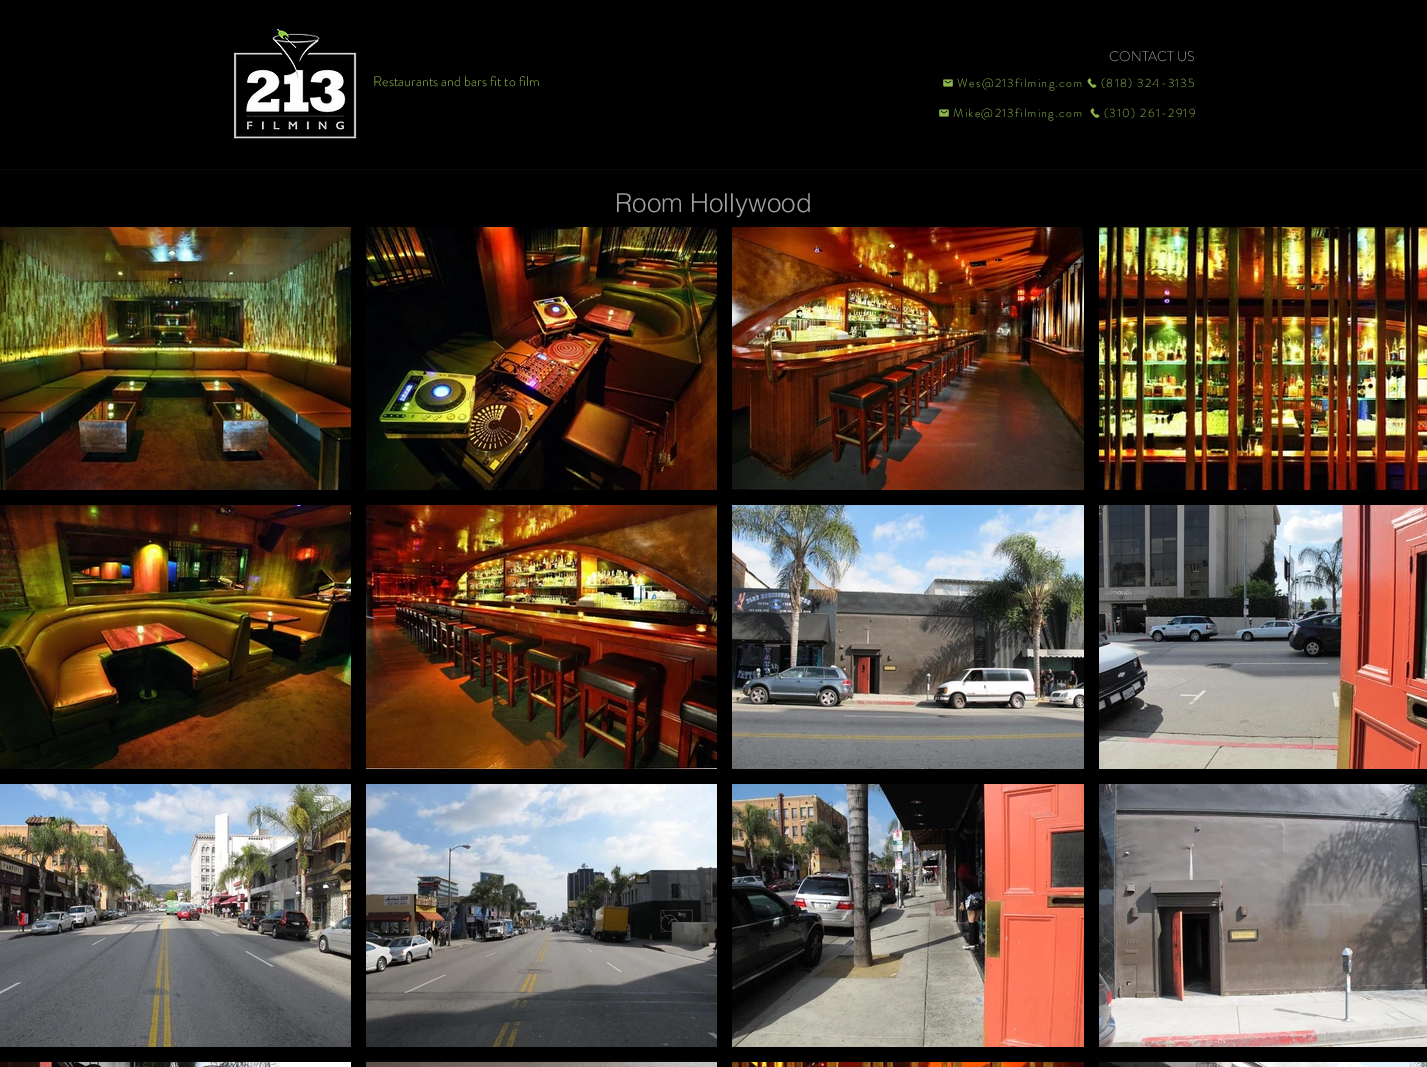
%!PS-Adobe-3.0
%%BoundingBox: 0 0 1427 1067
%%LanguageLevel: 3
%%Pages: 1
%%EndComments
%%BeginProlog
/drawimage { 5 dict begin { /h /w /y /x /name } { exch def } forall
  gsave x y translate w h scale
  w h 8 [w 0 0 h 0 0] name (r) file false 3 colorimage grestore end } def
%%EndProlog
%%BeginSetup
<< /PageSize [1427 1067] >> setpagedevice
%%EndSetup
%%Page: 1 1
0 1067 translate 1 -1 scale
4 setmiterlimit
0 setgray
0 0 1427 1067 rectfill
(images/1.raw) 233 29 124 114 drawimage
(images/2.raw) 943 79 10 8 drawimage
(images/3.raw) 1087 78 10 10 drawimage
(images/2.raw) 939 109 10 8 drawimage
(images/3.raw) 1090 108 10 10 drawimage
0.035 setgray
0 169 1427 1 rectfill
(images/4.raw) 0 227 351 263 drawimage
(images/5.raw) 366 227 351 263 drawimage
(images/6.raw) 732 227 352 263 drawimage
(images/7.raw) 1099 227 328 263 drawimage
(images/8.raw) 0 505 351 264 drawimage
(images/9.raw) 366 505 351 264 drawimage
(images/10.raw) 732 505 352 264 drawimage
(images/11.raw) 1099 505 328 264 drawimage
(images/12.raw) 0 784 351 263 drawimage
(images/13.raw) 366 784 351 263 drawimage
(images/14.raw) 732 784 352 263 drawimage
(images/15.raw) 1099 784 328 263 drawimage
(images/16.raw) 0 1062 351 5 drawimage
(images/17.raw) 366 1062 351 5 drawimage
(images/18.raw) 732 1062 352 5 drawimage
(images/19.raw) 1099 1062 328 5 drawimage
/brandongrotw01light-Light [14 0 0 -14 0 0] selectfont
0.627 0.627 0.624 setrgbcolor
1109 61 moveto (CONTACT US) show
0.561 0.714 0.298 setrgbcolor
373 86 moveto (Restaurants and bars fit to film) show
/brandongrotw01light-Light [12 0 0 -12 0 0] selectfont
957 87 moveto 1.25 0 (Wes@213filming.com) ashow
1101 87 moveto 1.25 0 (\(818\) 324-3135) ashow
953 117 moveto 1.25 0 (Mike@213filming.com) ashow
1104 117 moveto 1.25 0 (\(310\) 261-2919) ashow
/helvetica-Light [26 0 0 -26 0 0] selectfont
0.627 0.627 0.624 setrgbcolor
615 212 moveto (Room Hollywood) show
showpage
%%EOF
